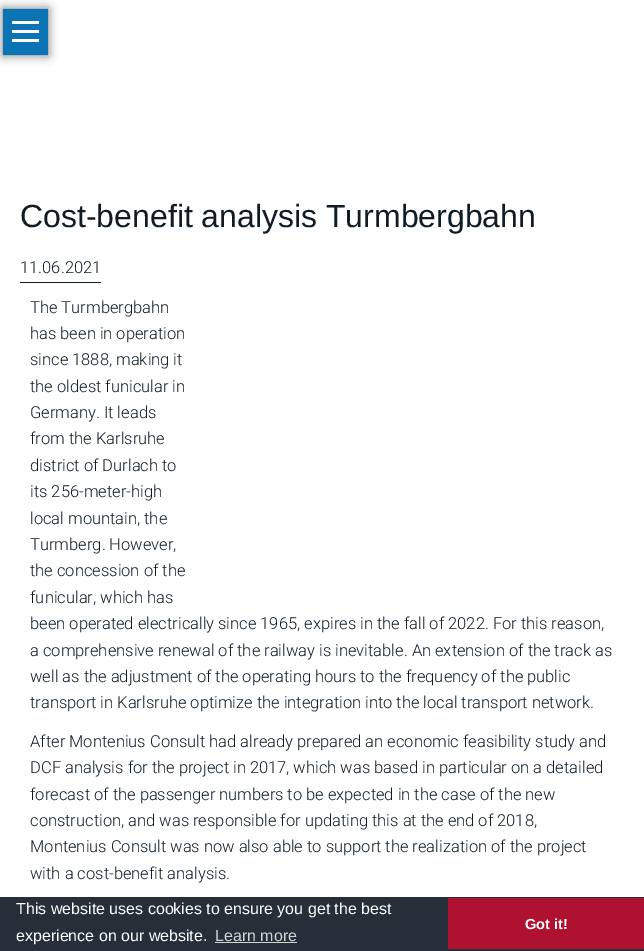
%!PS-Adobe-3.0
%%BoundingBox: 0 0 644 951
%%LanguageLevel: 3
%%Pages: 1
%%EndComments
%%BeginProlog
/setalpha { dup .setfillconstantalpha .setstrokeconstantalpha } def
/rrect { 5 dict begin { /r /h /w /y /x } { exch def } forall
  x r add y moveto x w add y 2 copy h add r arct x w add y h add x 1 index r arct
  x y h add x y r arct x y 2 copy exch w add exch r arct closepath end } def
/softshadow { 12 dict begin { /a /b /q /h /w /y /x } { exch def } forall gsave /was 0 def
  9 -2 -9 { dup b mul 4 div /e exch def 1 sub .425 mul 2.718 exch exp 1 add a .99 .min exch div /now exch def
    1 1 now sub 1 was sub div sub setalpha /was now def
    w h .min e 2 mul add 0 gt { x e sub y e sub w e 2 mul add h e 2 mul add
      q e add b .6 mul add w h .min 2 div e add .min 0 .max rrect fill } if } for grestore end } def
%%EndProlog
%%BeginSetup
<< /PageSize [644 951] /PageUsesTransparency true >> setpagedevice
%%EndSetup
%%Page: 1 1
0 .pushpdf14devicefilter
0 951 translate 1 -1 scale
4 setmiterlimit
1 setgray
0 0 644 951 rectfill
0 setgray
3 9 45 46 0 5 0.6 softshadow
0.043 0.455 0.71 setrgbcolor
3 9 45 46 rectfill
1 setgray
12 21 27 3 rectfill
12 30 27 3 rectfill
12 39 27 3 rectfill
0.059 0.11 0.149 setrgbcolor
20 282 81 1 rectfill
0.145 0.18 0.224 setrgbcolor
0 897 644 54 rectfill
0.827 0.835 0.843 setrgbcolor
215 942 82 1 rectfill
0.686 0.071 0.188 setrgbcolor
448 898 196 51 rectfill
/LiberationSans-Regular [32 0 0 -32 0 0] selectfont
0.059 0.11 0.149 setrgbcolor
20 227 moveto (Cost-benefit analysis Turmbergbahn) show
/Roboto-Light [16.5 0 0 -16.5 0 0] selectfont
20 273 moveto (11.06.2021) show
30 313 moveto (The Turmbergbahn) show
30 339 moveto (has been in operation) show
30 365 moveto (since 1888, making it) show
30 392 moveto (the oldest funicular in) show
30 418 moveto (Germany. It leads) show
30 444 moveto (from the Karlsruhe) show
30 471 moveto (district of Durlach to) show
30 497 moveto (its 256-meter-high) show
30 524 moveto (local mountain, the) show
30 550 moveto (Turmberg. However,) show
30 576 moveto (the concession of the) show
30 603 moveto (funicular, which has) show
30 629 moveto (been operated electrically since 1965, expires in the fall of 2022. For this reason,) show
30 656 moveto (a comprehensive renewal of the railway is inevitable. An extension of the track as) show
30 682 moveto (well as the adjustment of the operating hours to the frequency of the public) show
30 708 moveto (transport in Karlsruhe optimize the integration into the local transport network.) show
30 747 moveto (After Montenius Consult had already prepared an economic feasibility study and) show
30 773 moveto (DCF analysis for the project in 2017, which was based in particular on a detailed) show
30 800 moveto (forecast of the passenger numbers to be expected in the case of the new) show
30 826 moveto (construction, and was responsible for updating this at the end of 2018,) show
30 852 moveto (Montenius Consult was now also able to support the realization of the project) show
30 879 moveto (with a cost-benefit analysis.) show
/LiberationSans-Regular [16 0 0 -16 0 0] selectfont
1 setgray
16 914 moveto (This website uses cookies to ensure you get the best) show
16 941 moveto (experience on our website.) show
0.827 0.835 0.843 setrgbcolor
215 941 moveto (Learn more) show
/LiberationSans-Bold [14.5 0 0 -14.5 0 0] selectfont
1 setgray
525 929 moveto (Got it!) show
.poppdf14devicefilter showpage
%%EOF
